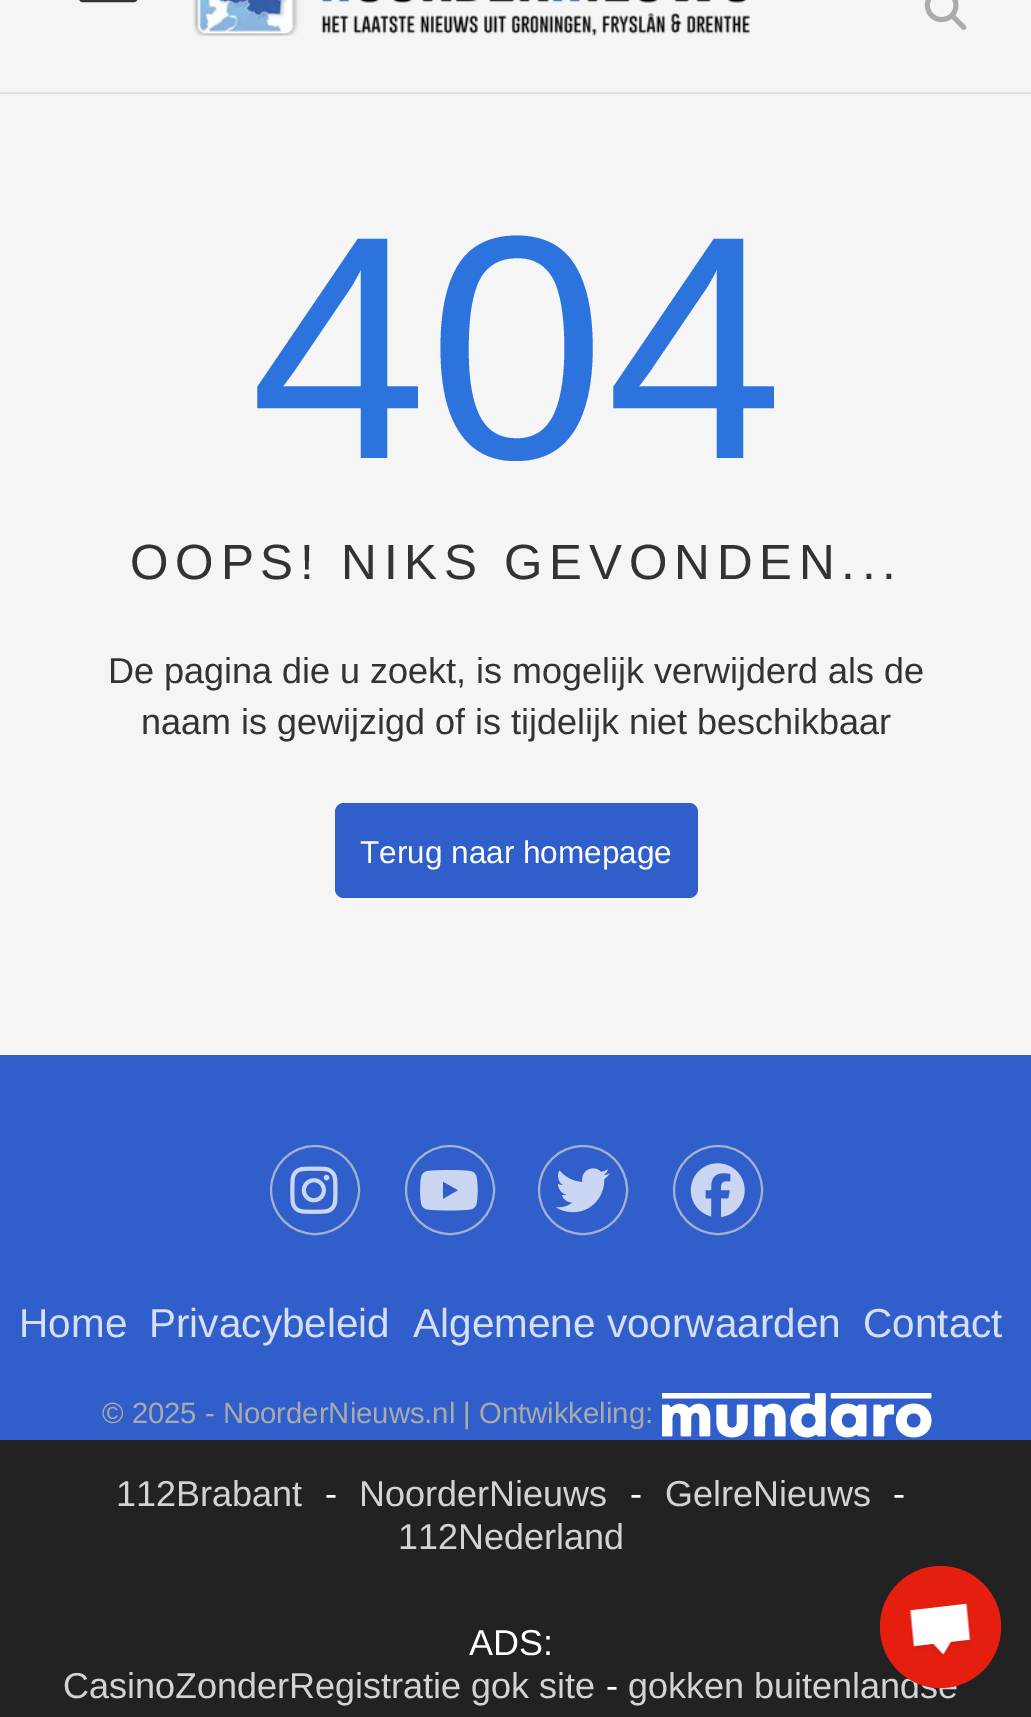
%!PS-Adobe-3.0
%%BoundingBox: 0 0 1031 1717
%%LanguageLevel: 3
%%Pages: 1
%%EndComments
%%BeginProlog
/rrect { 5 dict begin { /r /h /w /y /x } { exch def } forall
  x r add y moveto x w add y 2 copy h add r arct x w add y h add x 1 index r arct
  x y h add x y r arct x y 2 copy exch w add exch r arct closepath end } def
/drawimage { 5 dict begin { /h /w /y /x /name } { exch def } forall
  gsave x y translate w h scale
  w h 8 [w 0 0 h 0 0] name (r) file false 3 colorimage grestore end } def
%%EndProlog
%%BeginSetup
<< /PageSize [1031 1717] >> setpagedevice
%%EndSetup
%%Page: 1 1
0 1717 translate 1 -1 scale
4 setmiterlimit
0.961 setgray
0 0 1031 1717 rectfill
0.882 0.878 0.878 setrgbcolor
0 92 1031 2 rectfill
(images/1.raw) 79 0 59 3 drawimage
(images/2.raw) 193 0 557 36 drawimage
(images/3.raw) 924 0 43 30 drawimage
0.188 0.373 0.8 setrgbcolor
335 803 363 95 9 rrect fill
0 1055 1031 385 rectfill
0.647 0.694 0.8 setrgbcolor
2 setlinewidth
newpath 315 1190 44 0 360 arc closepath stroke
(images/4.raw) 290 1166 48 48 drawimage
newpath 450 1190 44 0 360 arc closepath stroke
(images/5.raw) 420 1170 58 41 drawimage
newpath 583 1190 44 0 360 arc closepath stroke
(images/6.raw) 556 1168 54 45 drawimage
newpath 718 1190 44 0 360 arc closepath stroke
(images/7.raw) 690 1163 55 54 drawimage
(images/8.raw) 662 1393 270 45 drawimage
0.133 setgray
0 1440 1031 277 rectfill
/LiberationSans-Regular [320 0 0 -320 0 0] selectfont
0.176 0.451 0.871 setrgbcolor
250 458 moveto (404) show
/LiberationSans-Regular [49.5 0 0 -49.5 0 0] selectfont
0.2 setgray
130 579 moveto 6.75 0 (OOPS! NIKS GEVONDEN...) ashow
/LiberationSans-Regular [36 0 0 -36 0 0] selectfont
108 683 moveto (De pagina die u zoekt, is mogelijk verwijderd als de) show
141 734 moveto (naam is gewijzigd of is tijdelijk niet beschikbaar) show
/LiberationSans-Regular [31.5 0 0 -31.5 0 0] selectfont
1 setgray
360 863 moveto (Terug naar homepage) show
/LiberationSans-Regular [40.5 0 0 -40.5 0 0] selectfont
0.839 0.875 0.961 setrgbcolor
19 1337 moveto (Home) show
149 1337 moveto (Privacybeleid) show
413 1337 moveto (Algemene voorwaarden) show
863 1337 moveto (Contact) show
/LiberationSans-Regular [29.25 0 0 -29.25 0 0] selectfont
0.667 setgray
102 1423 moveto (© 2025 - NoorderNieuws.nl | Ontwikkeling:) show
/LiberationSans-Regular [36 0 0 -36 0 0] selectfont
0.827 setgray
116 1506 moveto (112Brabant) show
1 setgray
325 1506 moveto (-) show
0.827 setgray
359 1506 moveto (NoorderNieuws) show
1 setgray
630 1506 moveto (-) show
0.827 setgray
665 1506 moveto (GelreNieuws) show
1 setgray
893 1506 moveto (-) show
0.827 setgray
398 1549 moveto (112Nederland) show
1 setgray
469 1655 moveto (ADS:) show
0.827 setgray
63 1698 moveto (CasinoZonderRegistratie gok site) show
1 setgray
606 1698 moveto (-) show
0.827 setgray
628 1698 moveto (gokken buitenlandse) show
0.898 0.118 0.059 setrgbcolor
880 1566 121 122 60.5 rrect fill
(images/9.raw) 910 1603 61 53 drawimage
showpage
%%EOF
